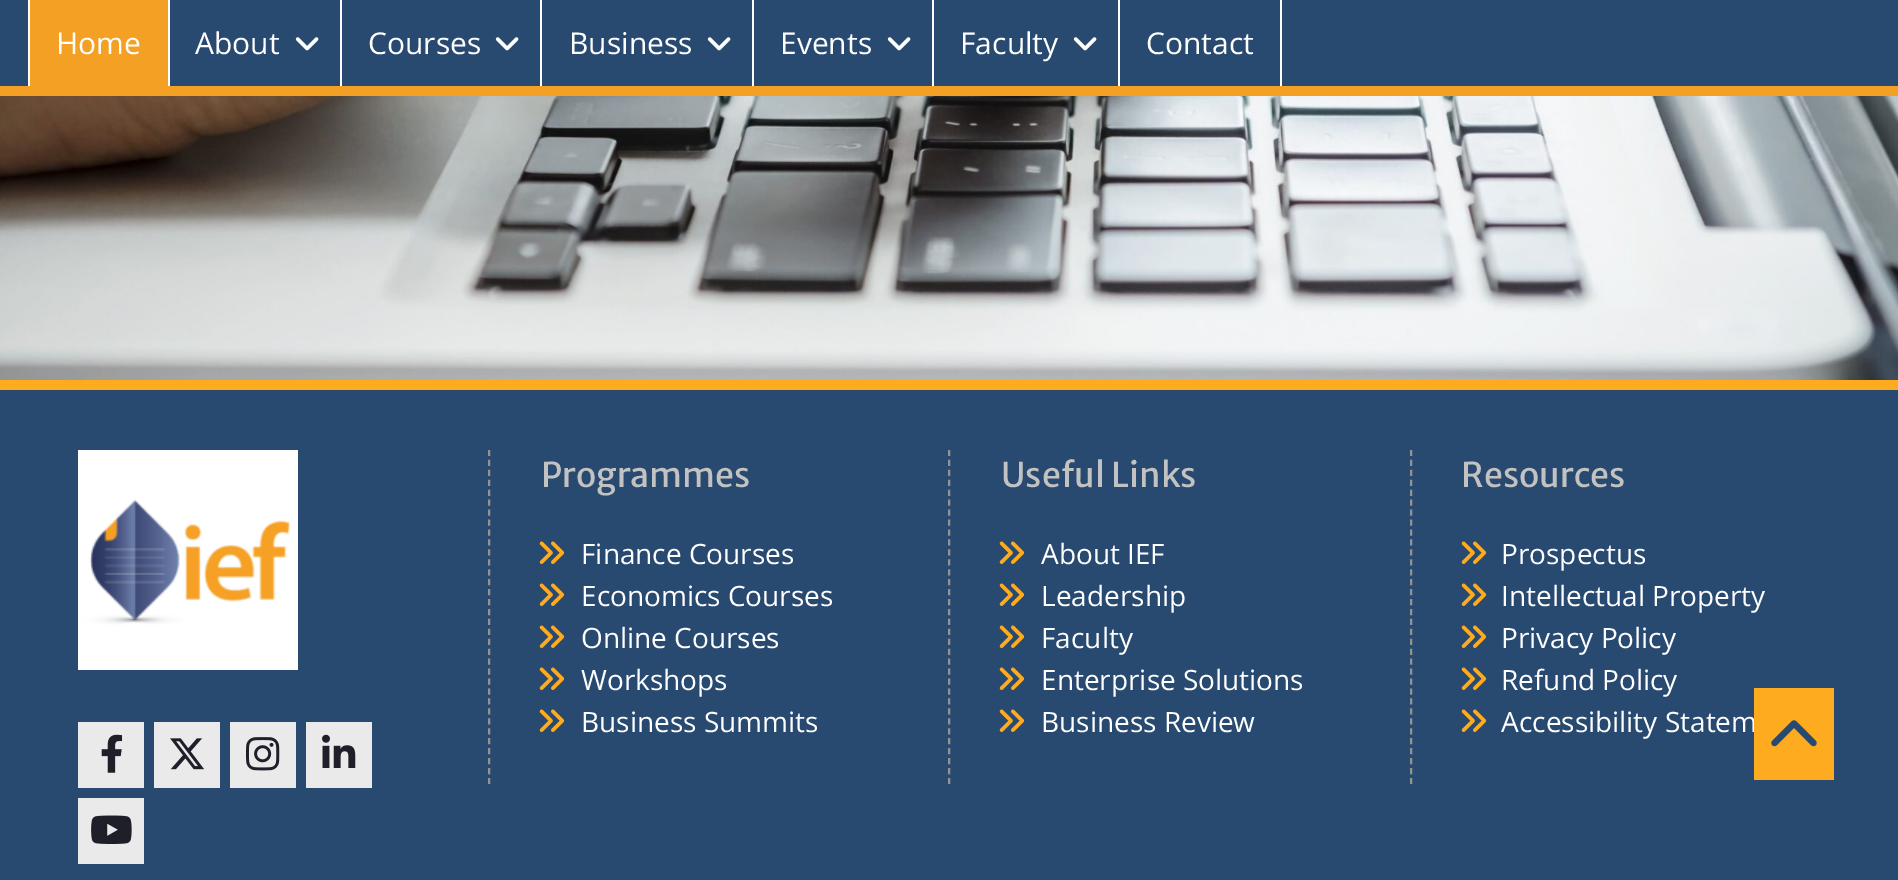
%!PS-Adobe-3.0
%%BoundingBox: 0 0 1898 880
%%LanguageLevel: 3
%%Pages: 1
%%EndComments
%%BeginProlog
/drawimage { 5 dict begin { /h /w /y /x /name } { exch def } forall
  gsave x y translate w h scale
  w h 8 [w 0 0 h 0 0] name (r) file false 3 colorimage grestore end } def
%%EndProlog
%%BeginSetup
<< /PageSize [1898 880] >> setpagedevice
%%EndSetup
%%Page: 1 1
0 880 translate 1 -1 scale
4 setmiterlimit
0.161 0.29 0.439 setrgbcolor
0 0 1898 880 rectfill
0.957 0.627 0.141 setrgbcolor
0 86 1898 10 rectfill
30 0 138 86 rectfill
1 setgray
168 0 2 86 rectfill
28 0 2 86 rectfill
340 0 2 86 rectfill
(images/1.raw) 295 37 24 14 drawimage
540 0 2 86 rectfill
(images/1.raw) 495 37 24 14 drawimage
752 0 2 86 rectfill
(images/1.raw) 707 37 24 14 drawimage
932 0 2 86 rectfill
(images/1.raw) 887 37 24 14 drawimage
1118 0 2 86 rectfill
(images/1.raw) 1073 37 24 14 drawimage
1280 0 2 86 rectfill
(images/2.raw) 0 96 1898 284 drawimage
1 0.671 0.122 setrgbcolor
0 380 1898 10 rectfill
(images/3.raw) 78 450 220 220 drawimage
0.918 setgray
78 722 66 66 rectfill
(images/4.raw) 101 734 22 39 drawimage
154 722 66 66 rectfill
(images/5.raw) 170 738 34 32 drawimage
230 722 66 66 rectfill
(images/6.raw) 246 737 34 34 drawimage
306 722 66 66 rectfill
(images/7.raw) 322 734 34 34 drawimage
78 798 66 66 rectfill
(images/8.raw) 91 815 41 29 drawimage
0.576 setgray
2 setlinewidth
[6 3.94] 0 setdash
newpath 489 450 moveto 489 784 lineto stroke
(images/9.raw) 539 541 26 23 drawimage
(images/9.raw) 539 583 26 23 drawimage
(images/9.raw) 539 625 26 23 drawimage
(images/9.raw) 539 667 26 23 drawimage
(images/9.raw) 539 709 26 23 drawimage
newpath 949 450 moveto 949 784 lineto stroke
(images/9.raw) 999 541 26 23 drawimage
(images/9.raw) 999 583 26 23 drawimage
(images/9.raw) 999 625 26 23 drawimage
(images/9.raw) 999 667 26 23 drawimage
(images/9.raw) 999 709 26 23 drawimage
newpath 1411 450 moveto 1411 784 lineto stroke
(images/9.raw) 1461 541 26 23 drawimage
(images/9.raw) 1461 583 26 23 drawimage
(images/9.raw) 1461 625 26 23 drawimage
(images/9.raw) 1461 667 26 23 drawimage
(images/9.raw) 1461 709 26 23 drawimage
/OpenSans-Regular [30 0 0 -30 0 0] selectfont
1 setgray
56 54 moveto (Home) show
195 54 moveto (About) show
368 54 moveto (Courses) show
569 54 moveto (Business) show
780 54 moveto (Events) show
960 54 moveto (Faculty) show
1146 54 moveto (Contact) show
/MerriweatherSans-Regular [34 0 0 -34 0 0] selectfont
0.761 setgray
541 487 moveto (Programmes) show
/OpenSans-Regular [28 0 0 -28 0 0] selectfont
1 setgray
581 564 moveto (Finance Courses) show
581 606 moveto (Economics Courses) show
581 648 moveto (Online Courses) show
581 690 moveto (Workshops) show
581 732 moveto (Business Summits) show
/MerriweatherSans-Regular [34 0 0 -34 0 0] selectfont
0.761 setgray
1001 487 moveto (Useful Links) show
/OpenSans-Regular [28 0 0 -28 0 0] selectfont
1 setgray
1041 564 moveto (About IEF) show
1041 606 moveto (Leadership) show
1041 648 moveto (Faculty) show
1041 690 moveto (Enterprise Solutions) show
1041 732 moveto (Business Review) show
/MerriweatherSans-Regular [34 0 0 -34 0 0] selectfont
0.761 setgray
1461 487 moveto (Resources) show
/OpenSans-Regular [28 0 0 -28 0 0] selectfont
1 setgray
1501 564 moveto (Prospectus) show
1501 606 moveto (Intellectual Property) show
1501 648 moveto (Privacy Policy) show
1501 690 moveto (Refund Policy) show
1501 732 moveto (Accessibility Statem) show
1 0.671 0.122 setrgbcolor
1754 688 80 92 rectfill
(images/10.raw) 1771 720 46 27 drawimage
showpage
%%EOF
